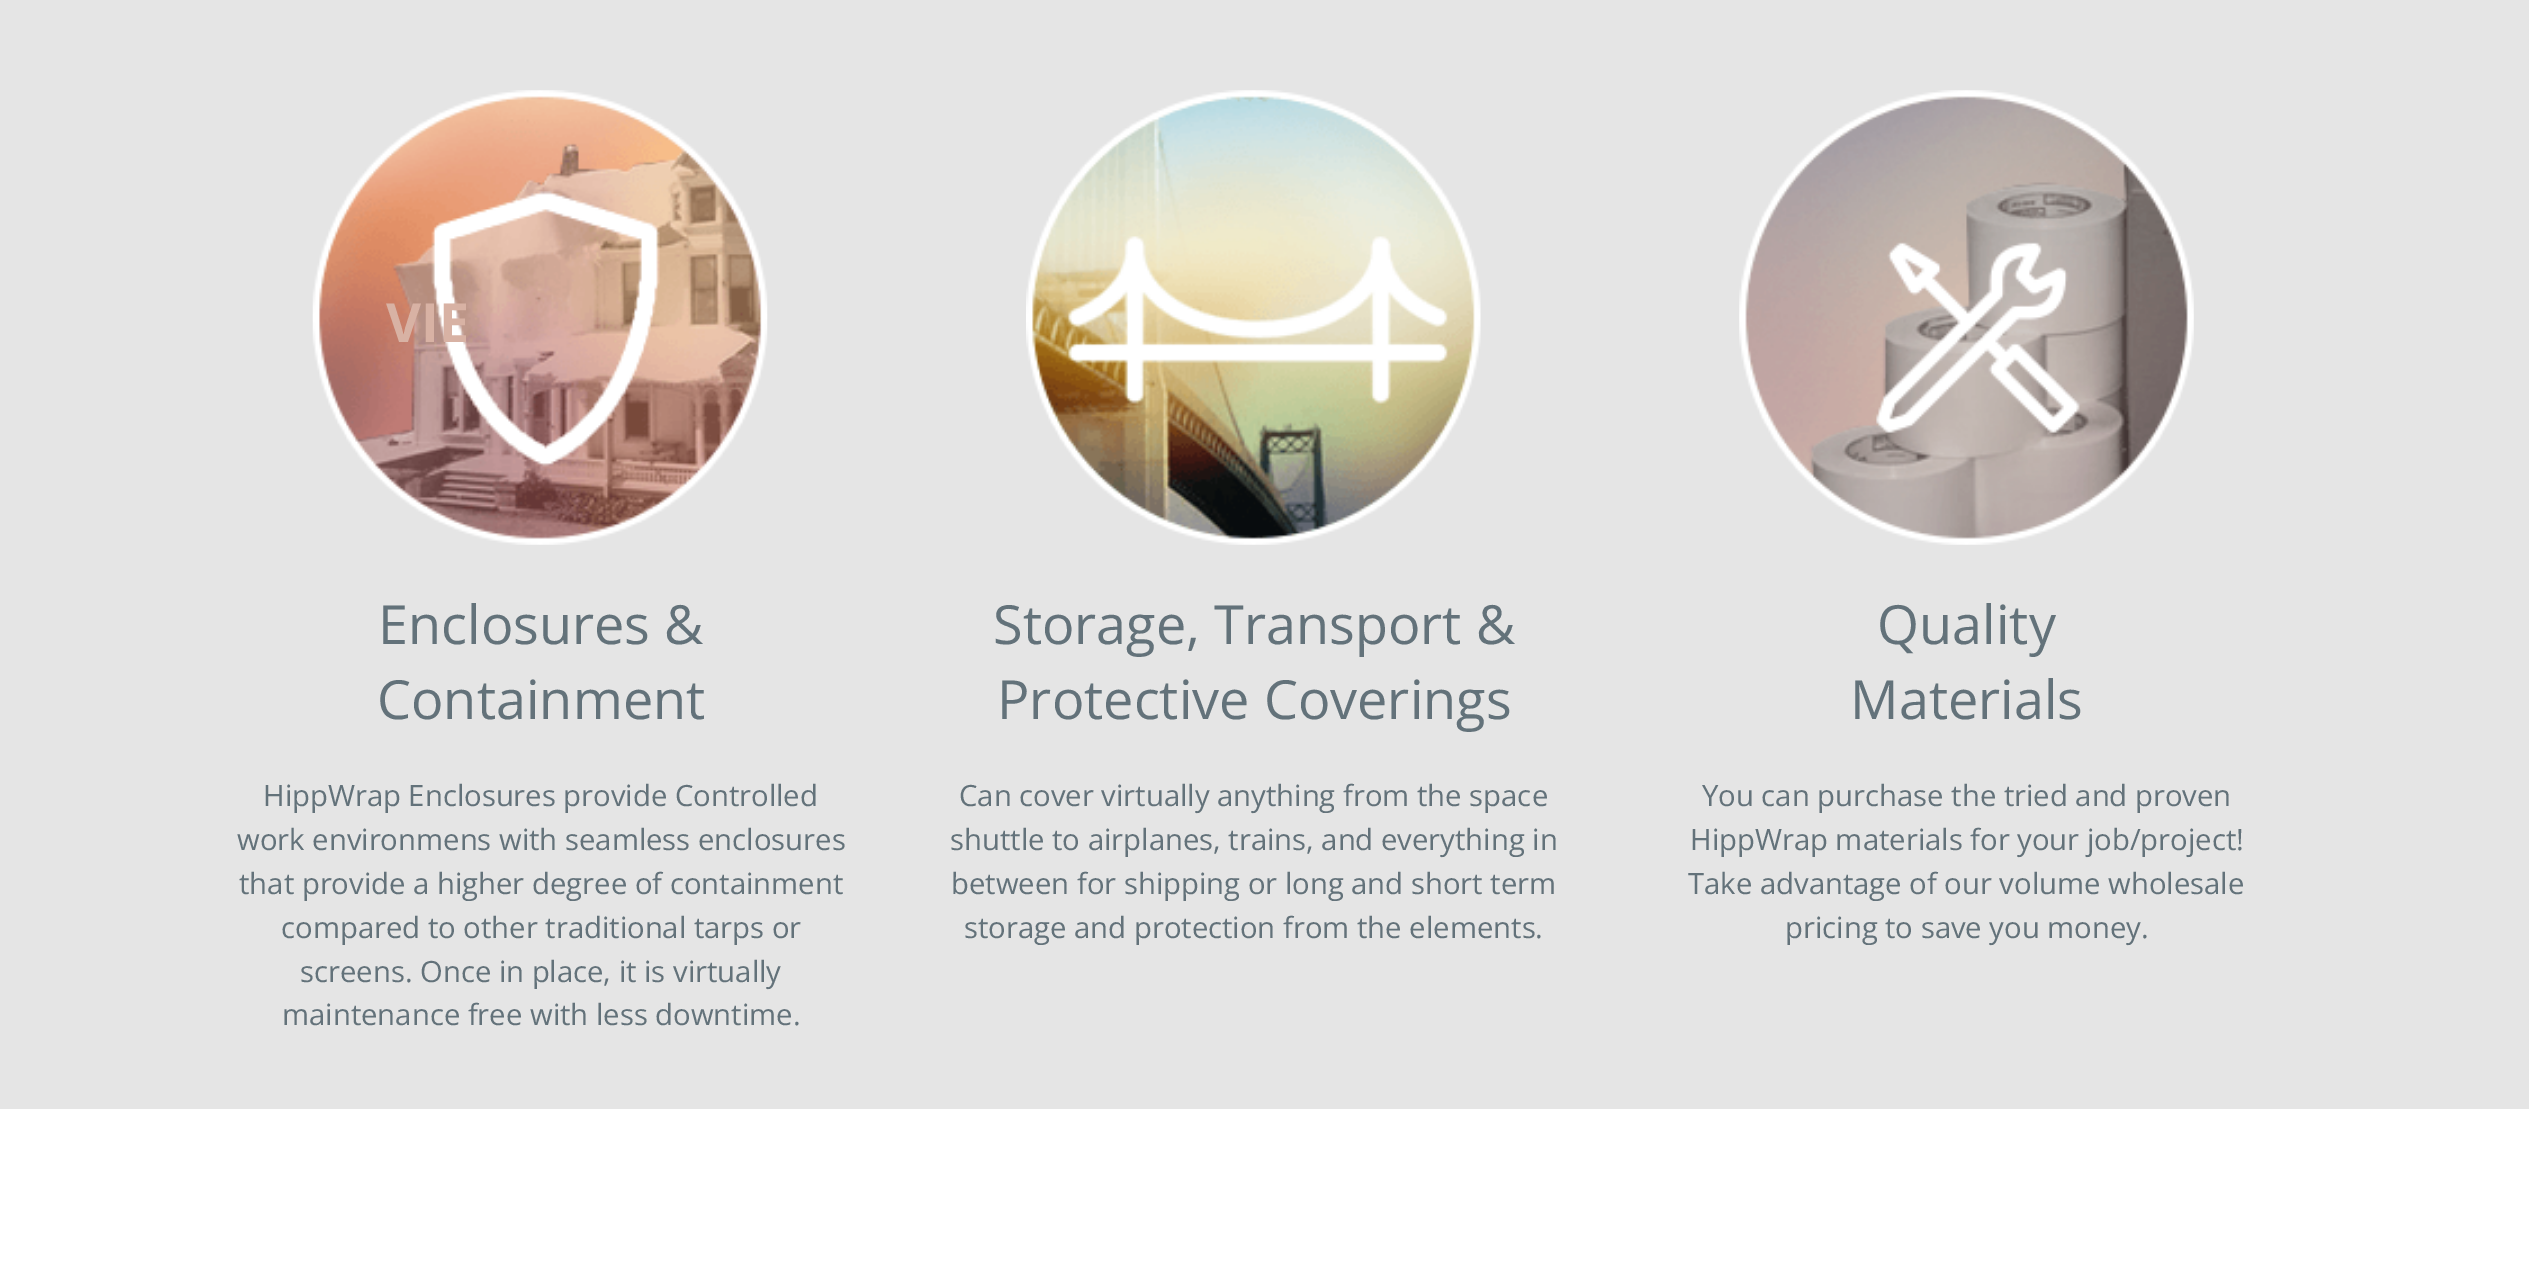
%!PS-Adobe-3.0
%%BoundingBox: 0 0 2529 1269
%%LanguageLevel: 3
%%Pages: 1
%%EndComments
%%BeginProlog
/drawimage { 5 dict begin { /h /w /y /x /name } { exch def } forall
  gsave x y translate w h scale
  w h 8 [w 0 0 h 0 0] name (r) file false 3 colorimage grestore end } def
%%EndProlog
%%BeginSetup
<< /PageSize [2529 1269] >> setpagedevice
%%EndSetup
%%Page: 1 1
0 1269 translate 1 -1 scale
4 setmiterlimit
0.898 setgray
0 0 2529 1269 rectfill
(images/1.raw) 312 90 456 455 drawimage
(images/2.raw) 1026 90 455 455 drawimage
(images/3.raw) 1739 90 455 455 drawimage
1 setgray
0 1109 2529 160 rectfill
/OpenSans-Bold [54 0 0 -54 0 0] selectfont
0.847 0.698 0.643 setrgbcolor
386 342 moveto (VIE) show
/OpenSans-Regular [54 0 0 -54 0 0] selectfont
0.388 0.447 0.478 setrgbcolor
378 644 moveto (Enclosures &) show
377 719 moveto (Containment) show
/OpenSans-Regular [29.25 0 0 -29.25 0 0] selectfont
263 806 moveto (HippWrap Enclosures provide Controlled) show
237 850 moveto (work environmens with seamless enclosures) show
239 894 moveto (that provide a higher degree of containment) show
281 938 moveto (compared to other traditional tarps or) show
300 982 moveto (screens. Once in place, it is virtually) show
282 1025 moveto (maintenance free with less downtime.) show
/OpenSans-Regular [54 0 0 -54 0 0] selectfont
993 644 moveto (Storage, Transport &) show
997 719 moveto (Protective Coverings) show
/OpenSans-Regular [29.25 0 0 -29.25 0 0] selectfont
959 806 moveto (Can cover virtually anything from the space) show
950 850 moveto (shuttle to airplanes, trains, and everything in) show
951 894 moveto (between for shipping or long and short term) show
964 938 moveto (storage and protection from the elements.) show
/OpenSans-Regular [54 0 0 -54 0 0] selectfont
1877 644 moveto (Quality) show
1850 719 moveto (Materials) show
/OpenSans-Regular [29.25 0 0 -29.25 0 0] selectfont
1702 806 moveto (You can purchase the tried and proven) show
1690 850 moveto (HippWrap materials for your job/project!) show
1688 894 moveto (Take advantage of our volume wholesale) show
1785 938 moveto (pricing to save you money.) show
showpage
%%EOF
